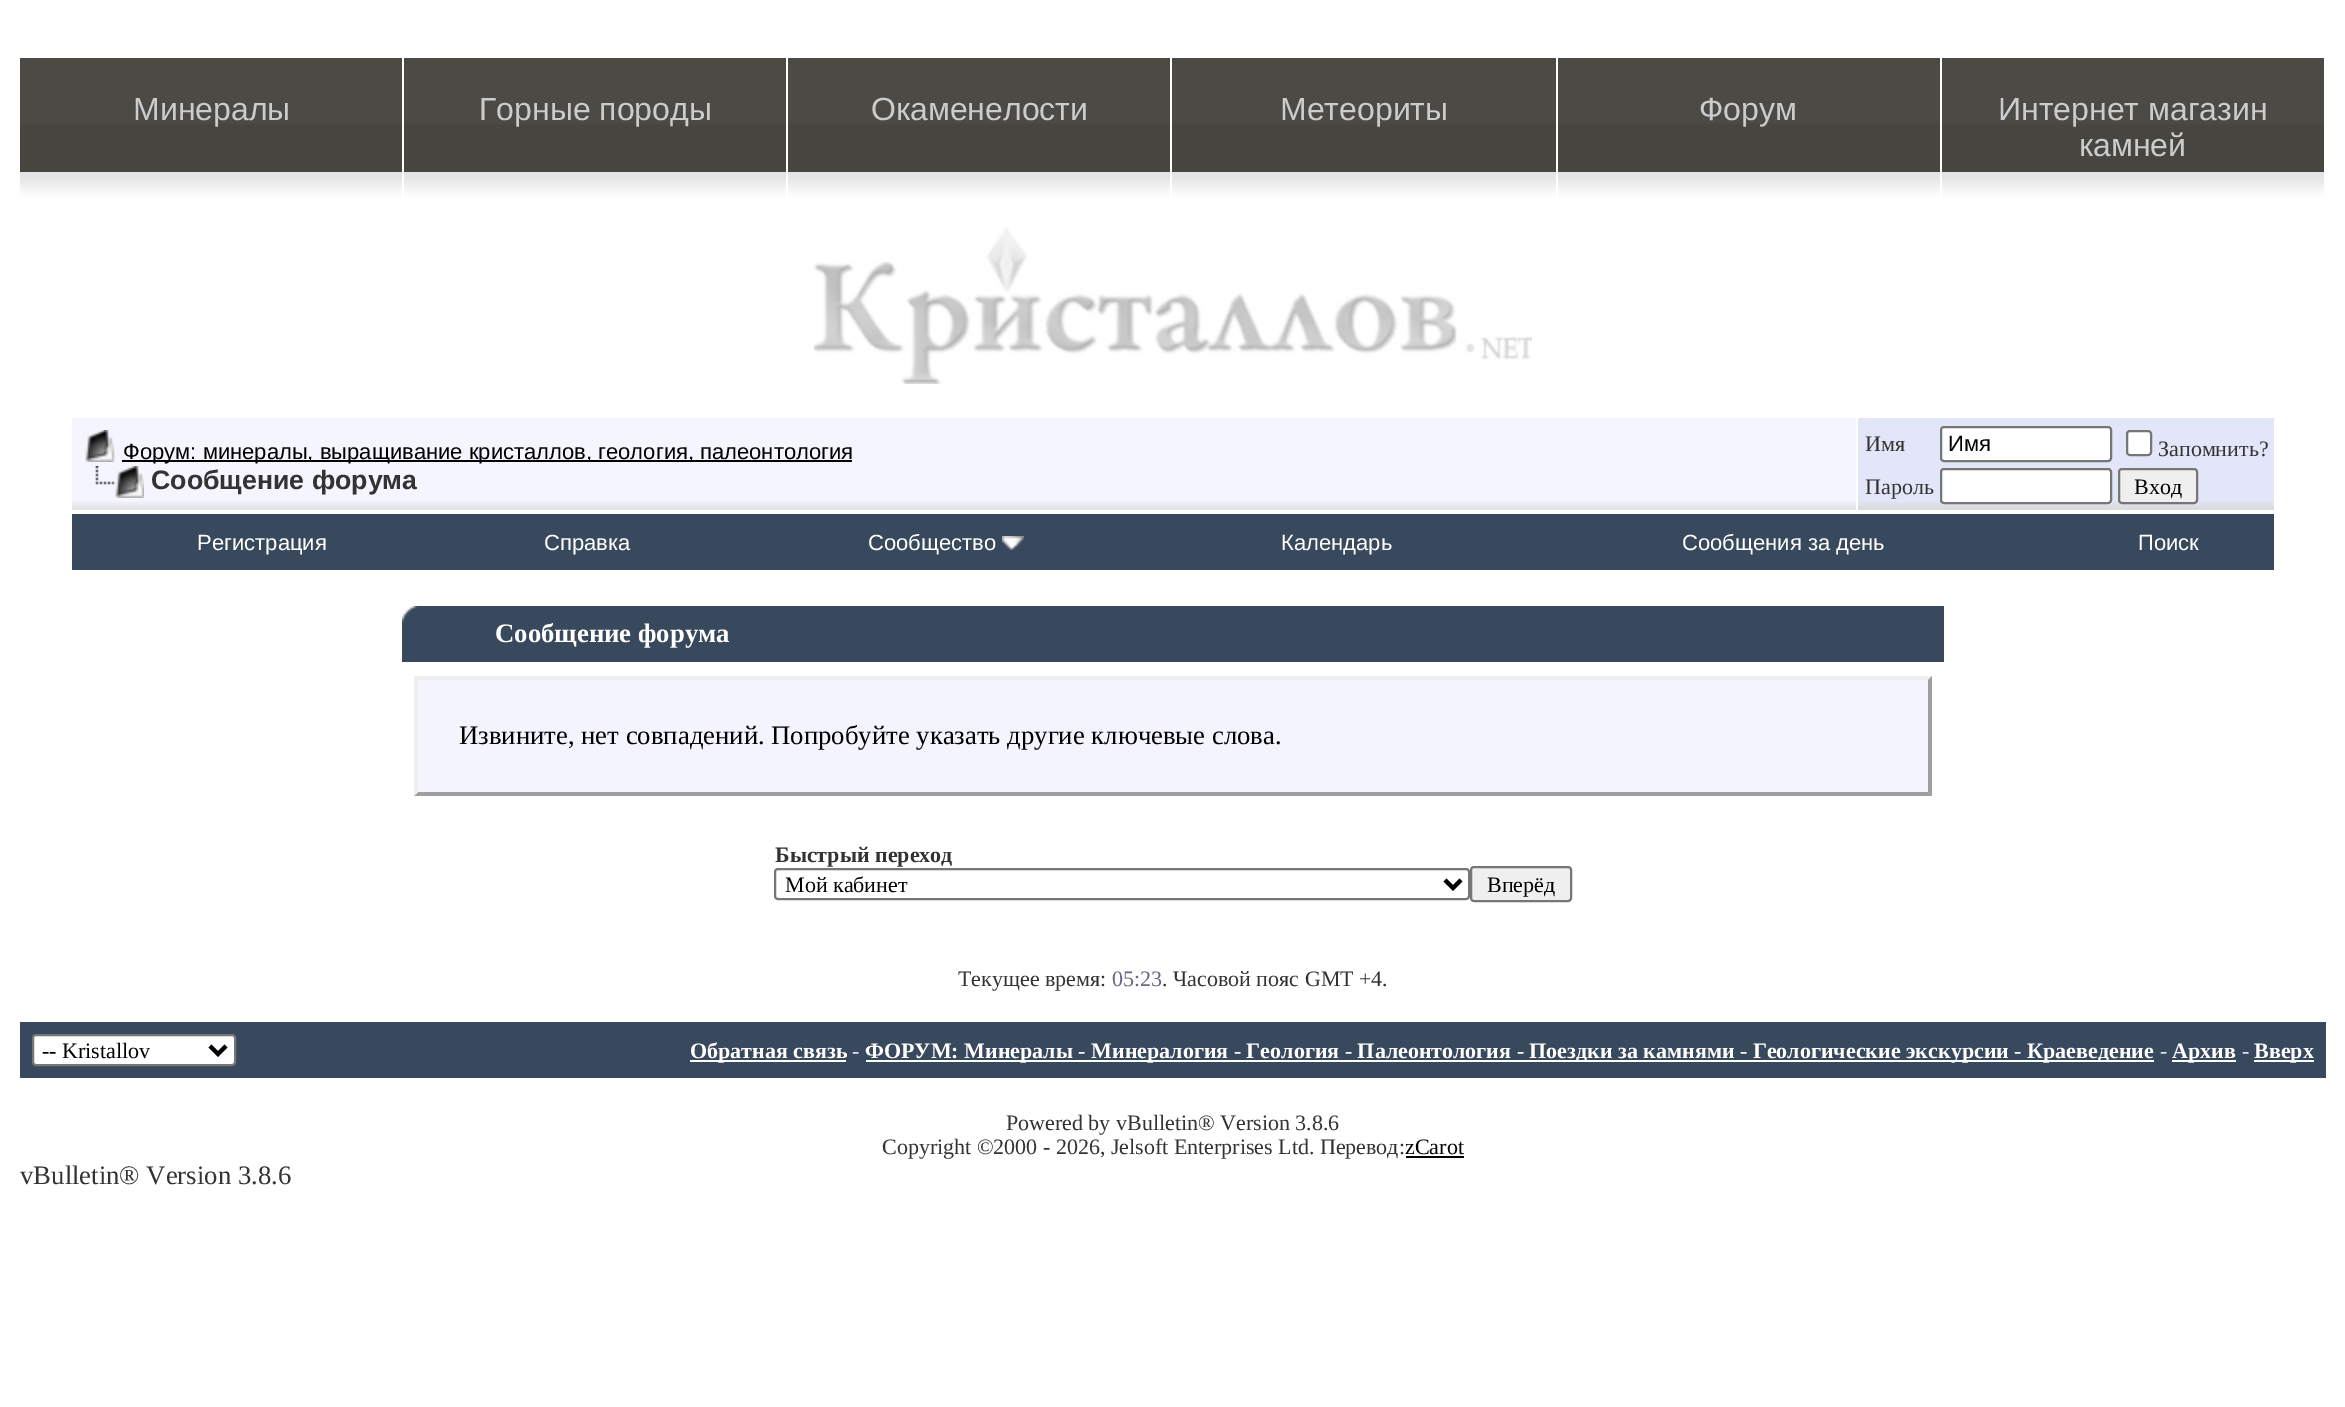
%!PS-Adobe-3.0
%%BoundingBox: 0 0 2345 1407
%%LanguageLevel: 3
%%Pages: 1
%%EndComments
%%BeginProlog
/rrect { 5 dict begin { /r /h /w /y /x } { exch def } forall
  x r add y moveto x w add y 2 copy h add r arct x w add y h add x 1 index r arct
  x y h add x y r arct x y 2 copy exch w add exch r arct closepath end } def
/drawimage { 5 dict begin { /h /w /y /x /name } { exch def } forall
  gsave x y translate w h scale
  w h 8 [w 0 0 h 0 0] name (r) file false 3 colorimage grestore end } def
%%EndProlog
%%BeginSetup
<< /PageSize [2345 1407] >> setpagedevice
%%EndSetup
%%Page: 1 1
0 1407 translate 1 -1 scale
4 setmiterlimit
1 setgray
0 0 2345 1407 rectfill
(images/1.raw) 20 58 382 114 drawimage
(images/1.raw) 404 58 382 114 drawimage
(images/1.raw) 788 58 382 114 drawimage
(images/2.raw) 1172 58 384 114 drawimage
(images/1.raw) 1558 58 382 114 drawimage
(images/1.raw) 1942 58 382 114 drawimage
(images/3.raw) 20 172 382 26 drawimage
(images/3.raw) 404 172 382 26 drawimage
(images/3.raw) 788 172 382 26 drawimage
(images/4.raw) 1172 172 384 26 drawimage
(images/3.raw) 1558 172 382 26 drawimage
(images/3.raw) 1942 172 382 26 drawimage
(images/5.raw) 814 228 718 156 drawimage
0.961 0.961 1 setrgbcolor
72 418 1784 83 rectfill
(images/6.raw) 72 501 1784 9 drawimage
(images/7.raw) 85 430 30 32 drawimage
0 setgray
122 460 730 2 rectfill
(images/8.raw) 95 466 49 32 drawimage
0.886 0.902 0.973 setrgbcolor
1858 418 416 83 rectfill
(images/9.raw) 1858 501 416 9 drawimage
1 setgray
1941 427 170 34 3 rrect gsave fill grestore
0.463 setgray
2 setlinewidth
stroke
1 setgray
2127 431 24 24 3 rrect gsave fill grestore
0.463 setgray
stroke
1 setgray
1941 469 170 34 3 rrect gsave fill grestore
0.463 setgray
stroke
0.937 setgray
2119 469 78 34 3 rrect gsave fill grestore
0.463 setgray
stroke
0.22 0.286 0.365 setrgbcolor
72 514 2202 56 rectfill
(images/10.raw) 1002 536 22 14 drawimage
402 606 1542 56 rectfill
(images/11.raw) 402 606 16 17 drawimage
0.957 0.957 1 setrgbcolor
414 680 1518 116 rectfill
0.933 setgray
newpath 414 676 moveto 1932 676 lineto 1928 680 lineto 418 680 lineto closepath fill
0.624 setgray
newpath 1932 676 moveto 1932 796 lineto 1928 792 lineto 1928 680 lineto closepath fill
newpath 1932 796 moveto 414 796 lineto 418 792 lineto 1928 792 lineto closepath fill
0.933 setgray
newpath 414 796 moveto 414 676 lineto 418 680 lineto 418 792 lineto closepath fill
0.463 setgray
775 869 694 30 3 rrect stroke
0 setgray
4 setlinewidth
newpath 1445 880 moveto 1453 888 lineto 1461 880 lineto stroke
0.937 setgray
1471 867 100 34 3 rrect gsave fill grestore
0.463 setgray
2 setlinewidth
stroke
0.22 0.286 0.365 setrgbcolor
20 1022 2306 56 rectfill
1 setgray
33 1035 202 30 3 rrect gsave fill grestore
0.463 setgray
stroke
0 setgray
4 setlinewidth
newpath 210 1046 moveto 218 1054 lineto 226 1046 lineto stroke
1 setgray
690 1060 156 2 rectfill
866 1060 1288 2 rectfill
2172 1060 64 2 rectfill
2254 1060 60 2 rectfill
0 setgray
1406 1156 58 2 rectfill
/LiberationSans-Regular [32 0 0 -32 0 0] selectfont
0.8 setgray
133 120 moveto (Минералы) show
479 120 moveto (Горные породы) show
871 120 moveto (Окаменелости) show
1280 120 moveto (Метеориты) show
1699 120 moveto (Форум) show
1998 120 moveto (Интернет магазин) show
2079 156 moveto (камней) show
/LiberationSans-Regular [22 0 0 -22 0 0] selectfont
0 setgray
123 459 moveto (Форум: минералы, выращивание кристаллов, геология, палеонтология) show
/LiberationSans-Bold [26.7 0 0 -26.7 0 0] selectfont
0.2 setgray
151 489 moveto (Сообщение форума) show
/LiberationSerif-Regular [22 0 0 -22 0 0] selectfont
1865 451 moveto (Имя) show
/LiberationSans-Regular [22 0 0 -22 0 0] selectfont
0 setgray
1948 451 moveto (Имя) show
/LiberationSerif-Regular [22 0 0 -22 0 0] selectfont
0.2 setgray
2158 456 moveto (Запомнить?) show
1865 494 moveto (Пароль) show
0 setgray
2134 494 moveto (Вход) show
/LiberationSans-Regular [22 0 0 -22 0 0] selectfont
1 setgray
197 550 moveto (Регистрация) show
544 550 moveto (Справка) show
868 550 moveto (Сообщество) show
1281 550 moveto (Календарь) show
1682 550 moveto (Сообщения за день) show
2138 550 moveto (Поиск) show
/LiberationSerif-Bold [26.7 0 0 -26.7 0 0] selectfont
495 642 moveto (Сообщение форума) show
/LiberationSerif-Regular [26.7 0 0 -26.7 0 0] selectfont
0 setgray
459 744 moveto (Извините, нет совпадений. Попробуйте указать другие ключевые слова.) show
/LiberationSerif-Bold [22 0 0 -22 0 0] selectfont
0.2 setgray
775 862 moveto (Быстрый переход) show
/LiberationSerif-Regular [22 0 0 -22 0 0] selectfont
0 setgray
785 892 moveto (Мой кабинет) show
1487 892 moveto (Вперёд) show
0.2 setgray
958 986 moveto (Текущее время:) show
0.4 0.4 0.525 setrgbcolor
1112 986 moveto (05:23) show
0.2 setgray
1162 986 moveto (. Часовой пояс GMT +4.) show
0 setgray
42 1058 moveto (-- Kristallov) show
/LiberationSerif-Bold [22 0 0 -22 0 0] selectfont
1 setgray
690 1058 moveto (Обратная связь) show
0.878 0.878 0.965 setrgbcolor
852 1058 moveto (-) show
1 setgray
865 1058 moveto (ФОРУМ: Минералы - Минералогия - Геология - Палеонтология - Поездки за камнями - Геологические экскурсии - Краеведение) show
0.878 0.878 0.965 setrgbcolor
2160 1058 moveto (-) show
1 setgray
2172 1058 moveto (Архив) show
0.878 0.878 0.965 setrgbcolor
2242 1058 moveto (-) show
1 setgray
2254 1058 moveto (Вверх) show
/LiberationSerif-Regular [22 0 0 -22 0 0] selectfont
0.2 setgray
1006 1130 moveto (Powered by vBulletin® Version 3.8.6) show
882 1154 moveto (Copyright ©2000 - 2026, Jelsoft Enterprises Ltd. Перевод:) show
0 setgray
1405 1154 moveto (zCarot) show
/LiberationSerif-Regular [26.7 0 0 -26.7 0 0] selectfont
0.2 setgray
20 1184 moveto (vBulletin® Version 3.8.6) show
showpage
%%EOF
